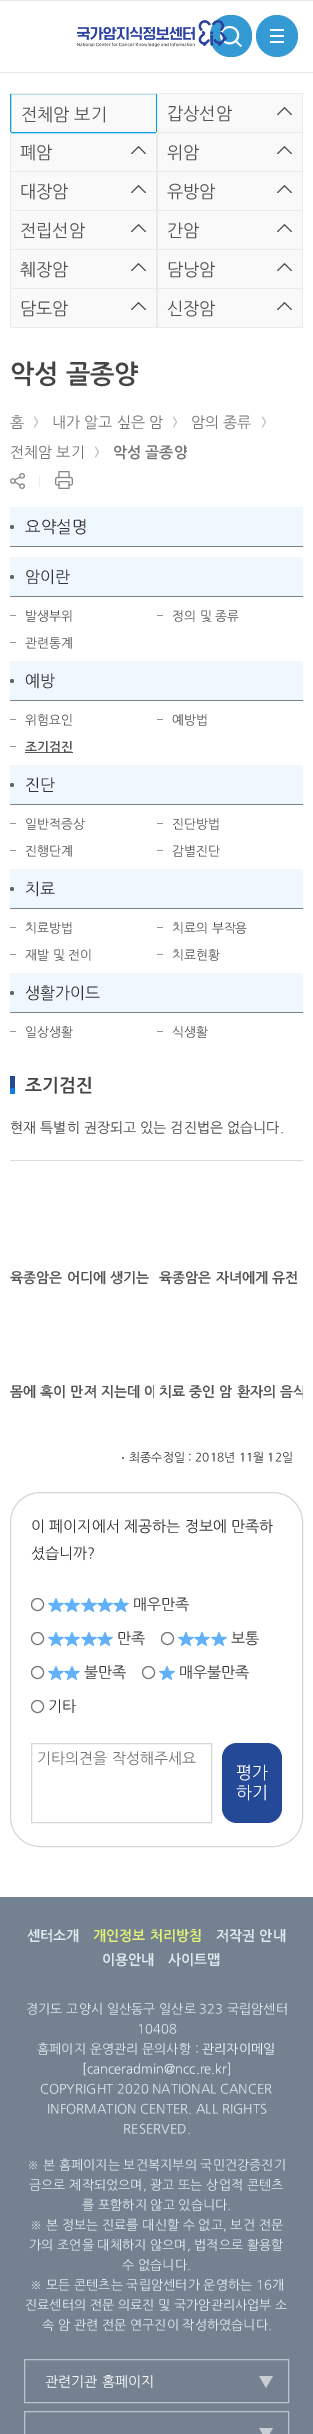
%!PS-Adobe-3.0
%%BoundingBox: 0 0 313 2434
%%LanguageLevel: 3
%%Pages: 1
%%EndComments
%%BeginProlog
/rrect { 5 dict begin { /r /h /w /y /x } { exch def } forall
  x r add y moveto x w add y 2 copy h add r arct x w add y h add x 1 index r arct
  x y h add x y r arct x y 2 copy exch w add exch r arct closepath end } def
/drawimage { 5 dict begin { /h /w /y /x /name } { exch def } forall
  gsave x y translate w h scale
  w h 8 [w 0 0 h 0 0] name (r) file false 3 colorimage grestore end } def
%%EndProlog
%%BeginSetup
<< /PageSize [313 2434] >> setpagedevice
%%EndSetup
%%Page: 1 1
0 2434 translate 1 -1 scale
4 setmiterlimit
1 setgray
0 0 313 2434 rectfill
0.902 setgray
0 0 313 1 rectfill
0 72 313 1 rectfill
0.204 0.604 0.827 setrgbcolor
210 15 42 42 20 rrect fill
(images/2.raw) 220 26 22 21 drawimage
(images/1.raw) 77 20 150 27 drawimage
newpath 277 36 21 0 360 arc closepath fill
(images/3.raw) 270 29 14 14 drawimage
0.976 setgray
11 94 291 233 rectfill
0.922 setgray
10 93 293 1 rectfill
gsave
10 94 293 234 rectclip
0.008 0.631 0.89 setrgbcolor
10.5 93.5 146 39 rectstroke
grestore
302 94 1 39 rectfill
157 132 146 1 rectfill
157 94 1 39 rectfill
(images/4.raw) 277 107 15 8 drawimage
156 132 1 40 rectfill
10 171 147 1 rectfill
10 132 1 40 rectfill
(images/4.raw) 131 146 15 8 drawimage
302 132 1 40 rectfill
157 171 146 1 rectfill
157 132 1 40 rectfill
(images/4.raw) 277 146 15 8 drawimage
156 171 1 40 rectfill
10 210 147 1 rectfill
10 171 1 40 rectfill
(images/4.raw) 131 185 15 8 drawimage
302 171 1 40 rectfill
157 210 146 1 rectfill
157 171 1 40 rectfill
(images/4.raw) 277 185 15 8 drawimage
156 210 1 40 rectfill
10 249 147 1 rectfill
10 210 1 40 rectfill
(images/4.raw) 131 224 15 8 drawimage
302 210 1 40 rectfill
157 249 146 1 rectfill
157 210 1 40 rectfill
(images/4.raw) 277 224 15 8 drawimage
156 249 1 40 rectfill
10 288 147 1 rectfill
10 249 1 40 rectfill
(images/4.raw) 131 263 15 8 drawimage
302 249 1 40 rectfill
157 288 146 1 rectfill
157 249 1 40 rectfill
(images/4.raw) 277 263 15 8 drawimage
156 288 1 40 rectfill
10 327 147 1 rectfill
10 288 1 40 rectfill
(images/4.raw) 131 302 15 8 drawimage
302 288 1 40 rectfill
157 327 146 1 rectfill
157 288 1 40 rectfill
(images/4.raw) 277 302 15 8 drawimage
(images/5.raw) 34 416 4 12 drawimage
(images/5.raw) 173 416 4 12 drawimage
(images/5.raw) 262 416 4 12 drawimage
(images/5.raw) 95 446 4 12 drawimage
(images/6.raw) 10 473 15 16 drawimage
39 476 1 11 rectfill
(images/7.raw) 55 471 18 18 drawimage
0.941 0.973 1 setrgbcolor
10 507 293 39 rectfill
0.502 setgray
10 546 293 1 rectfill
0.4 setgray
newpath 12 527 2 0 360 arc closepath fill
0.941 0.973 1 setrgbcolor
10 557 293 39 rectfill
0.502 setgray
10 596 293 1 rectfill
0.4 setgray
newpath 12 577 2 0 360 arc closepath fill
0.6 setgray
10 615 6 1 rectfill
157 615 6 1 rectfill
10 642 6 1 rectfill
0.941 0.973 1 setrgbcolor
10 661 293 39 rectfill
0.502 setgray
10 700 293 1 rectfill
0.4 setgray
newpath 12 681 2 0 360 arc closepath fill
0.6 setgray
10 719 6 1 rectfill
157 719 6 1 rectfill
10 746 6 1 rectfill
0.333 setgray
25 752 48 1 rectfill
0.941 0.973 1 setrgbcolor
10 765 293 39 rectfill
0.502 setgray
10 804 293 1 rectfill
0.4 setgray
newpath 12 785 2 0 360 arc closepath fill
0.6 setgray
10 823 6 1 rectfill
157 823 6 1 rectfill
10 850 6 1 rectfill
157 850 6 1 rectfill
0.941 0.973 1 setrgbcolor
10 869 293 39 rectfill
0.502 setgray
10 908 293 1 rectfill
0.4 setgray
newpath 12 889 2 0 360 arc closepath fill
0.6 setgray
10 927 6 1 rectfill
157 927 6 1 rectfill
10 954 6 1 rectfill
157 954 6 1 rectfill
0.941 0.973 1 setrgbcolor
10 973 293 39 rectfill
0.502 setgray
10 1012 293 1 rectfill
0.4 setgray
newpath 12 993 2 0 360 arc closepath fill
0.6 setgray
10 1031 6 1 rectfill
157 1031 6 1 rectfill
(images/8.raw) 10 1076 5 18 drawimage
0.867 setgray
10 1160 293 1 rectfill
0.467 setgray
122 1457 2 2 rectfill
0.843 setgray
10.5 1492.5 292 354 29.5 rrect stroke
0.463 setgray
newpath 37.5 1604.5 6 0 360 arc closepath stroke
(images/9.raw) 48 1598 81 14 drawimage
newpath 37.5 1638.5 6 0 360 arc closepath stroke
(images/10.raw) 48 1632 65 14 drawimage
newpath 167.5 1638.5 6 0 360 arc closepath stroke
(images/11.raw) 178 1632 49 14 drawimage
newpath 37.5 1672.5 6 0 360 arc closepath stroke
(images/12.raw) 48 1666 32 14 drawimage
newpath 148.5 1672.5 6 0 360 arc closepath stroke
(images/13.raw) 159 1666 16 14 drawimage
newpath 37.5 1706.5 6 0 360 arc closepath stroke
0.843 setgray
31.5 1743.5 180 79 rectstroke
0.141 0.286 0.592 setrgbcolor
222 1743 60 80 15 rrect fill
0.451 0.506 0.565 setrgbcolor
0 1897 313 537 rectfill
0.729 0.769 0.812 setrgbcolor
24.5 2359.5 264 43 rectstroke
(images/14.raw) 259 2376 14 12 drawimage
24.5 2411.5 264 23 rectstroke
(images/15.raw) 259 2428 14 6 drawimage
/NanumGothic-Regular [17.25 0 0 -17.25 0 0] selectfont
0.333 setgray
21 120 moveto (전체암 보기) show
167 119 moveto (갑상선암) show
20 158 moveto (폐암) show
167 158 moveto (위암) show
20 197 moveto (대장암) show
167 197 moveto (유방암) show
20 236 moveto (전립선암) show
167 236 moveto (간암) show
20 275 moveto (췌장암) show
167 275 moveto (담낭암) show
20 314 moveto (담도암) show
167 314 moveto (신장암) show
/NanumGothic-Bold [25.75 0 0 -25.75 0 0] selectfont
0.267 setgray
10 382 moveto (악성 골종양) show
/NanumGothic-Regular [15 0 0 -15 0 0] selectfont
0.459 setgray
10 427 moveto (홈) show
52 427 moveto (내가 알고 싶은 암) show
191 427 moveto (암의 종류) show
10 457 moveto (전체암 보기) show
gsave
113 438 74 27 rectclip
/NanumGothic-Bold [15 0 0 -15 0 0] selectfont
113 457 moveto (악성 골종양) show
grestore
/NanumGothic-Regular [16.5 0 0 -16.5 0 0] selectfont
0.2 setgray
25 532 moveto (요약설명) show
/NanumGothic-Regular [16 0 0 -16 0 0] selectfont
25 582 moveto (암이란) show
/NanumGothic-Regular [12.75 0 0 -12.75 0 0] selectfont
0.333 setgray
25 620 moveto (발생부위) show
172 620 moveto (정의 및 종류) show
25 647 moveto (관련통계) show
/NanumGothic-Regular [16 0 0 -16 0 0] selectfont
0.2 setgray
25 686 moveto (예방) show
/NanumGothic-Regular [12.75 0 0 -12.75 0 0] selectfont
0.333 setgray
25 724 moveto (위험요인) show
172 724 moveto (예방법) show
/NanumGothic-Bold [12.75 0 0 -12.75 0 0] selectfont
25 751 moveto (조기검진) show
/NanumGothic-Regular [16 0 0 -16 0 0] selectfont
0.2 setgray
25 790 moveto (진단) show
/NanumGothic-Regular [12.75 0 0 -12.75 0 0] selectfont
0.333 setgray
25 828 moveto (일반적증상) show
172 828 moveto (진단방법) show
25 855 moveto (진행단계) show
172 855 moveto (감별진단) show
/NanumGothic-Regular [16 0 0 -16 0 0] selectfont
0.2 setgray
25 894 moveto (치료) show
/NanumGothic-Regular [12.75 0 0 -12.75 0 0] selectfont
0.333 setgray
25 932 moveto (치료방법) show
172 932 moveto (치료의 부작용) show
25 959 moveto (재발 및 전이) show
172 959 moveto (치료현황) show
/NanumGothic-Regular [16 0 0 -16 0 0] selectfont
0.2 setgray
25 998 moveto (생활가이드) show
/NanumGothic-Regular [12.75 0 0 -12.75 0 0] selectfont
0.333 setgray
25 1036 moveto (일상생활) show
172 1036 moveto (식생활) show
/NanumGothic-Bold [18 0 0 -18 0 0] selectfont
0.267 setgray
25 1091 moveto (조기검진) show
/NanumGothic-Regular [14 0 0 -14 0 0] selectfont
10 1132 moveto (현재 특별히 권장되고 있는 검진법은 없습니다.) show
/NanumGothic-Bold [14 0 0 -14 0 0] selectfont
0.333 setgray
10 1282 moveto (육종암은 어디에 생기는) show
159 1282 moveto (육종암은 자녀에게 유전) show
gsave
10 1381 144 20 rectclip
10 1396 moveto (몸에 혹이 만져 지는데 아) show
grestore
gsave
159 1381 144 20 rectclip
159 1396 moveto (치료 중인 암 환자의 음식) show
grestore
/NanumGothic-Regular [11.9 0 0 -11.9 0 0] selectfont
0.2 setgray
129 1461 moveto (최종수정일 : 2018년 11월 12일) show
/NanumGothic-Regular [15 0 0 -15 0 0] selectfont
31 1531 moveto (이 페이지에서 제공하는 정보에 만족하) show
31 1558 moveto (셨습니까?) show
133 1609 moveto (매우만족) show
117 1643 moveto (만족) show
231 1643 moveto (보통) show
84 1677 moveto (불만족) show
179 1677 moveto (매우불만족) show
48 1711 moveto (기타) show
0.459 setgray
37 1763 moveto (기타의견을 작성해주세요) show
/NanumGothic-Regular [17 0 0 -17 0 0] selectfont
1 setgray
236 1778 moveto (평가) show
236 1798 moveto (하기) show
/NanumGothic-Bold [14 0 0 -14 0 0] selectfont
0.882 0.922 0.937 setrgbcolor
27 1940 moveto (센터소개) show
0.894 0.945 0.463 setrgbcolor
93 1940 moveto (개인정보 처리방침) show
0.882 0.922 0.937 setrgbcolor
216 1940 moveto (저작권 안내) show
102 1964 moveto (이용안내) show
168 1964 moveto (사이트맵) show
/NanumGothic-Regular [13 0 0 -13 0 0] selectfont
26 2013 moveto (경기도 고양시 일산동구 일산로 323 국립암센터) show
137 2033 moveto (10408) show
37 2053 moveto (홈페이지 운영관리 문의사항 :) show
0.945 0.984 1 setrgbcolor
202 2053 moveto (관리자이메일) show
82 2073 moveto ([canceradmin@ncc.re.kr]) show
0.882 0.922 0.937 setrgbcolor
40 2093 moveto (COPYRIGHT 2020 NATIONAL CANCER) show
47 2113 moveto (INFORMATION CENTER. ALL RIGHTS) show
123 2133 moveto (RESERVED.) show
27 2169 moveto (※ 본 홈페이지는 보건복지부의 국민건강증진기) show
29 2189 moveto (금으로 제작되었으며, 광고 또는 상업적 콘텐츠) show
82 2209 moveto (를 포함하지 않고 있습니다.) show
30 2229 moveto (※ 본 정보는 진료를 대신할 수 없고, 보건 전문) show
29 2249 moveto (가의 조언을 대체하지 않으며, 법적으로 활용할) show
122 2269 moveto (수 없습니다.) show
30 2289 moveto (※ 모든 콘텐츠는 국립암센터가 운영하는 16개) show
25 2309 moveto (진료센터의 전문 의료진 및 국가암관리사업부 소) show
42 2329 moveto (속 암 관련 전문 연구진이 작성하였습니다.) show
/NanumGothic-Regular [14 0 0 -14 0 0] selectfont
1 setgray
45 2386 moveto (관련기관 홈페이지) show
showpage
%%EOF
